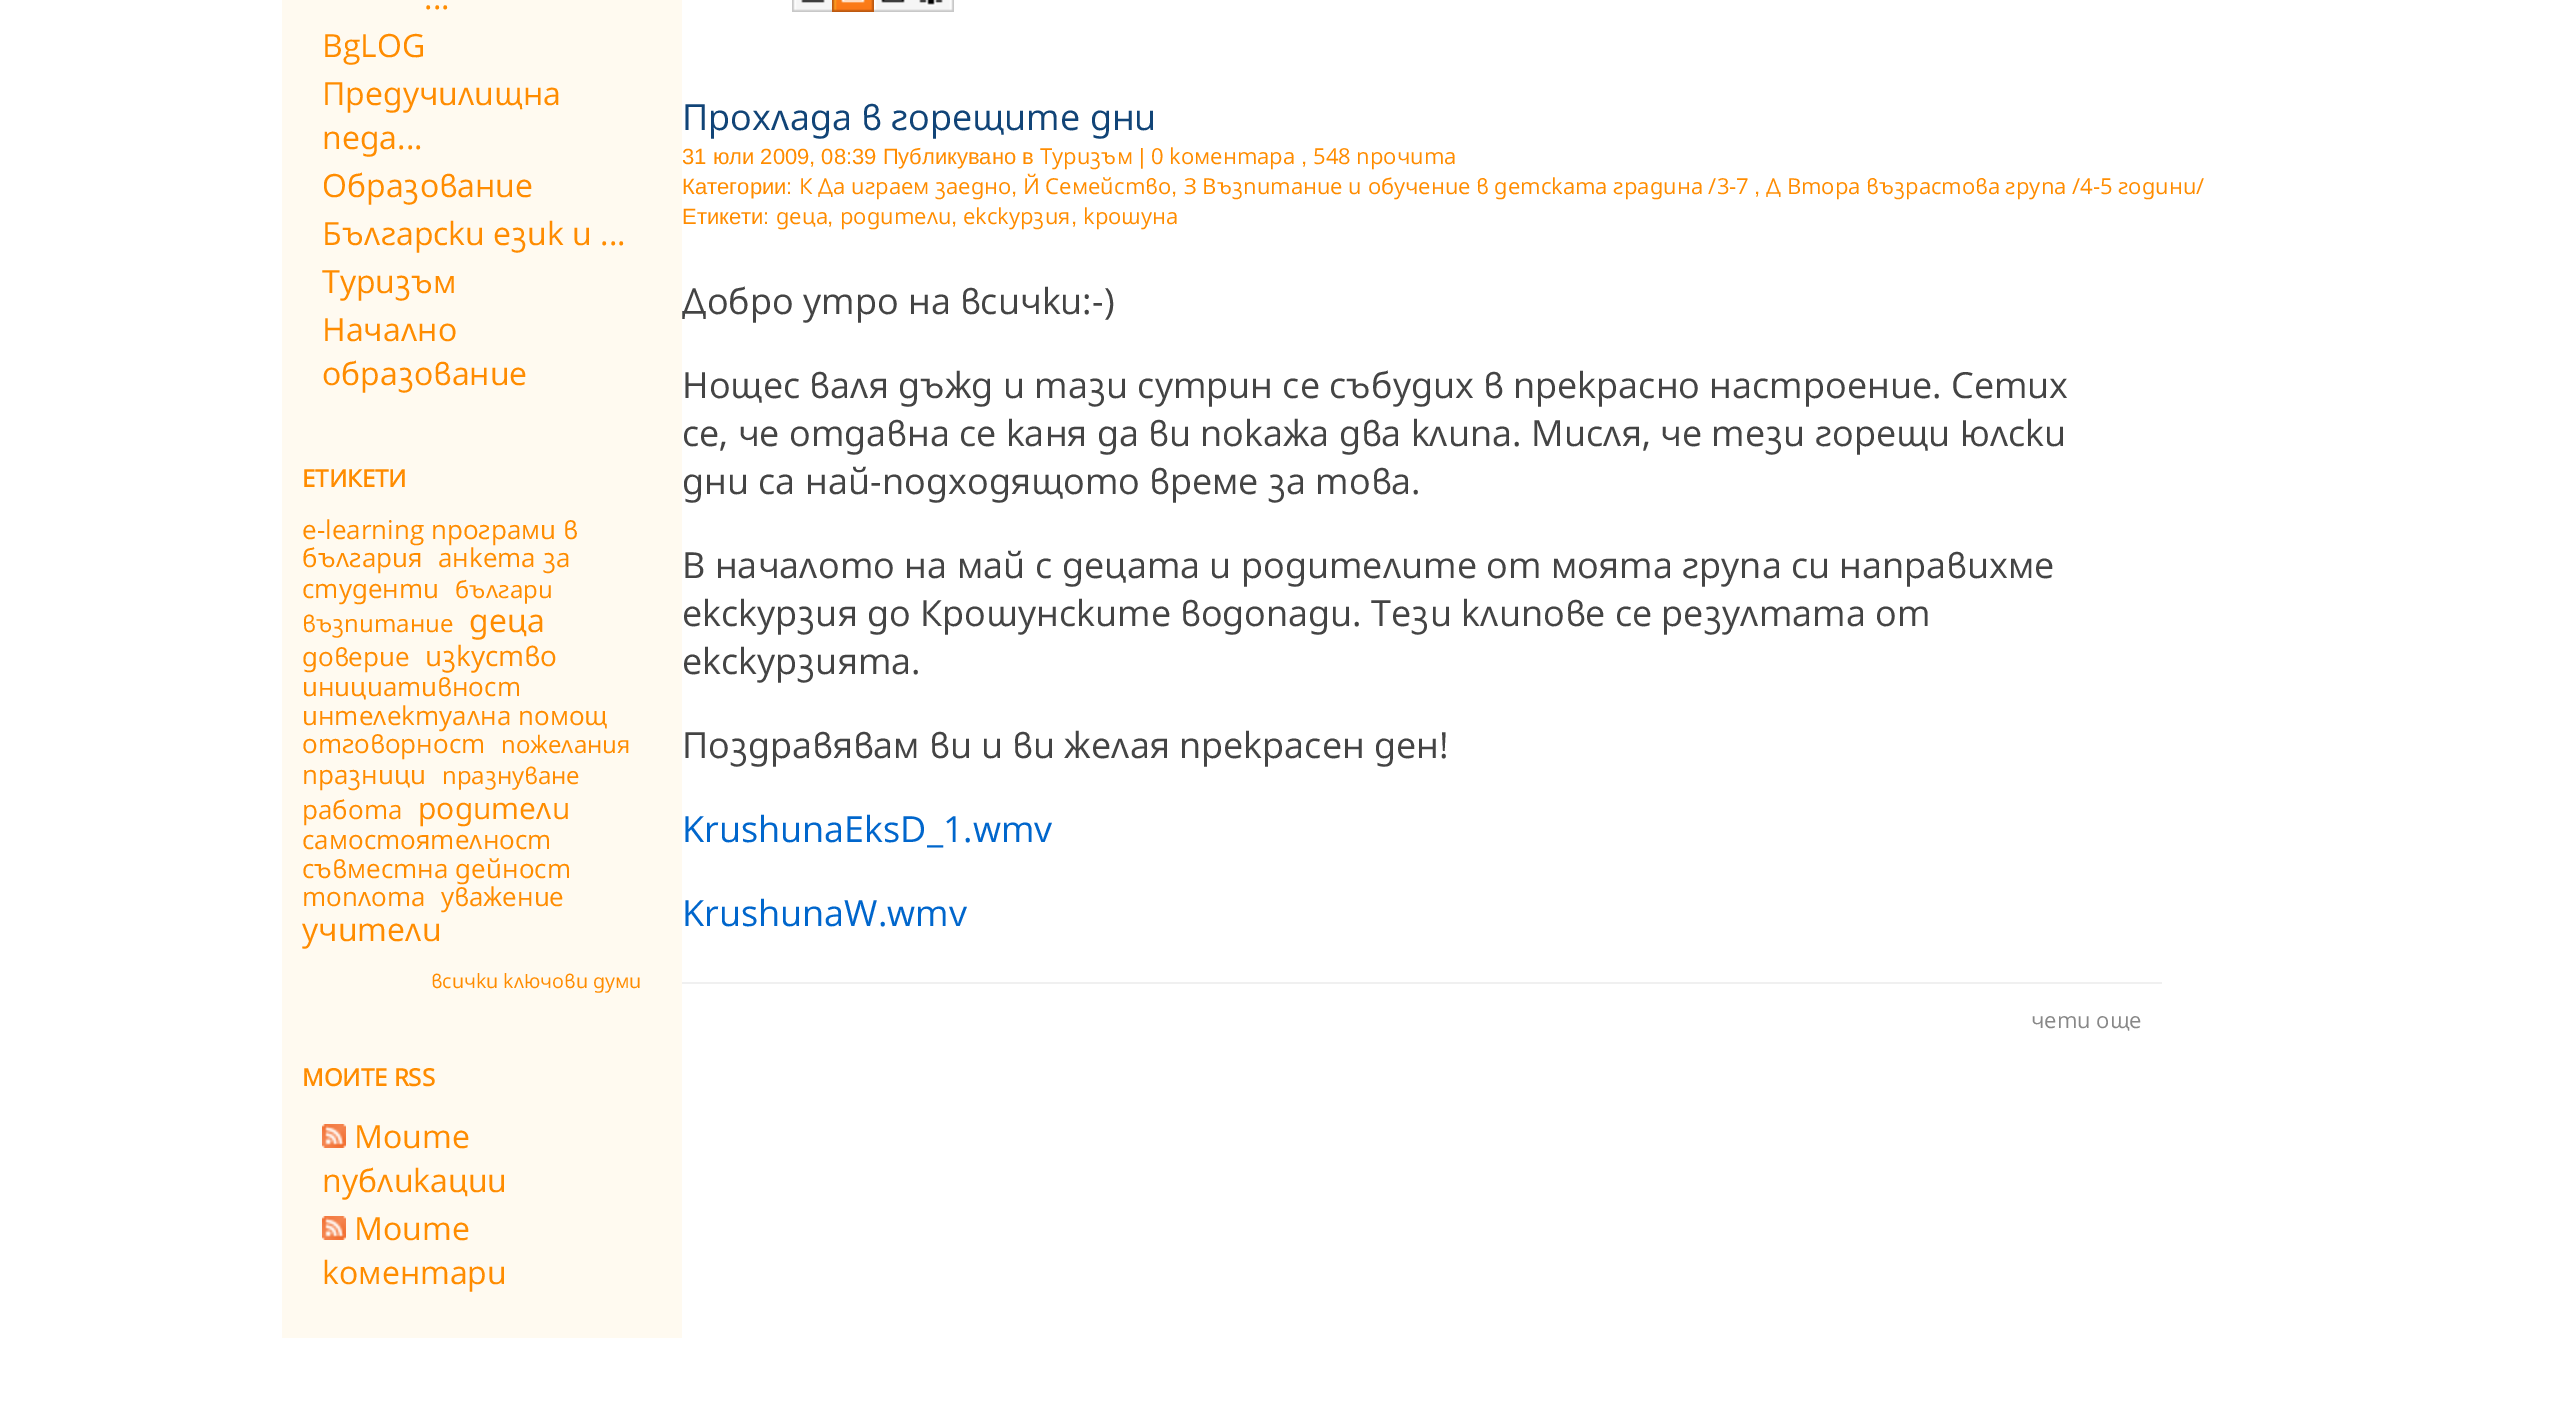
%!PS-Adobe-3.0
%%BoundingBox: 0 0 2563 1425
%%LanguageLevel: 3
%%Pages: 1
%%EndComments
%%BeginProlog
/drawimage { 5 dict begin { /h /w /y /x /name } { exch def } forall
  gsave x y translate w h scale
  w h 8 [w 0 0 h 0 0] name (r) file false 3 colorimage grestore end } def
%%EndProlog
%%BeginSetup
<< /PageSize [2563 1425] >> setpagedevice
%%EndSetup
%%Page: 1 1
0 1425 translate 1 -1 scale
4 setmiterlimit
1 setgray
0 0 2563 1425 rectfill
1 0.98 0.941 setrgbcolor
282 0 400 1338 rectfill
(images/1.raw) 322 1124 24 24 drawimage
(images/1.raw) 322 1216 24 24 drawimage
(images/2.raw) 792 0 40 12 drawimage
(images/3.raw) 832 0 42 12 drawimage
(images/4.raw) 874 0 40 12 drawimage
(images/5.raw) 914 0 40 12 drawimage
0.941 setgray
682 982 1480 2 rectfill
/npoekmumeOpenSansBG-Regular [32 0 0 -32 0 0] selectfont
1 0.549 0 setrgbcolor
424 9 moveto (...) show
322 57 moveto (BgLOG) show
322 105 moveto (Предучилищна) show
322 149 moveto (педа...) show
322 197 moveto (Образование) show
322 245 moveto (Български език и ...) show
322 293 moveto (Туризъм) show
322 341 moveto (Начално) show
322 385 moveto (образование) show
/npoekmumeOpenSansBG-Bold [24 0 0 -24 0 0] selectfont
302 487 moveto (ЕТИКЕТИ) show
/npoekmumeOpenSansBG-Regular [26 0 0 -26 0 0] selectfont
302 539 moveto (e-learning програми в) show
302 567 moveto (българия) show
438 567 moveto (анкета за) show
302 598 moveto (студенти) show
/npoekmumeOpenSansBG-Regular [24 0 0 -24 0 0] selectfont
455 598 moveto (българи) show
302 632 moveto (възпитание) show
/npoekmumeOpenSansBG-Regular [32 0 0 -32 0 0] selectfont
469 632 moveto (деца) show
/npoekmumeOpenSansBG-Regular [26 0 0 -26 0 0] selectfont
302 666 moveto (доверие) show
/npoekmumeOpenSansBG-Regular [28 0 0 -28 0 0] selectfont
425 666 moveto (изкуство) show
/npoekmumeOpenSansBG-Regular [26 0 0 -26 0 0] selectfont
302 696 moveto (инициативност) show
302 725 moveto (интелектуална помощ) show
302 753 moveto (отговорност) show
/npoekmumeOpenSansBG-Regular [24 0 0 -24 0 0] selectfont
501 753 moveto (пожелания) show
/npoekmumeOpenSansBG-Regular [26 0 0 -26 0 0] selectfont
302 784 moveto (празници) show
/npoekmumeOpenSansBG-Regular [24 0 0 -24 0 0] selectfont
442 784 moveto (празнуване) show
/npoekmumeOpenSansBG-Regular [26 0 0 -26 0 0] selectfont
302 819 moveto (работа) show
/npoekmumeOpenSansBG-Regular [30 0 0 -30 0 0] selectfont
418 819 moveto (родители) show
/npoekmumeOpenSansBG-Regular [26 0 0 -26 0 0] selectfont
302 849 moveto (самостоятелност) show
302 878 moveto (съвместна дейност) show
302 906 moveto (топлота) show
441 906 moveto (уважение) show
/npoekmumeOpenSansBG-Regular [32 0 0 -32 0 0] selectfont
302 941 moveto (учители) show
/npoekmumeOpenSansBG-Regular [19.75 0 0 -19.75 0 0] selectfont
431 988 moveto (всички ключови думи) show
/npoekmumeOpenSansBG-Bold [24 0 0 -24 0 0] selectfont
302 1086 moveto (МОИТЕ RSS) show
/npoekmumeOpenSansBG-Regular [32 0 0 -32 0 0] selectfont
354 1148 moveto (Моите) show
322 1192 moveto (публикации) show
354 1240 moveto (Моите) show
322 1284 moveto (коментари) show
/npoekmumeOpenSansBG-Regular [36 0 0 -36 0 0] selectfont
0.067 0.267 0.467 setrgbcolor
682 130 moveto (Прохлада в горещите дни) show
/LiberationSans-Regular [22 0 0 -22 0 0] selectfont
1 0.549 0 setrgbcolor
682 164 moveto (31 юли 2009, 08:39 Публикувано в) show
/npoekmumeOpenSansBG-Regular [22 0 0 -22 0 0] selectfont
1040 164 moveto (Туризъм) show
/LiberationSans-Regular [22 0 0 -22 0 0] selectfont
1139 164 moveto (|) show
/npoekmumeOpenSansBG-Regular [22 0 0 -22 0 0] selectfont
1151 164 moveto (0 коментара) show
/LiberationSans-Regular [22 0 0 -22 0 0] selectfont
1301 164 moveto (,) show
/npoekmumeOpenSansBG-Regular [22 0 0 -22 0 0] selectfont
1313 164 moveto (548 прочита) show
/LiberationSans-Regular [22 0 0 -22 0 0] selectfont
682 194 moveto (Категории:) show
/npoekmumeOpenSansBG-Regular [22 0 0 -22 0 0] selectfont
799 194 moveto (К Да играем заедно) show
/LiberationSans-Regular [22 0 0 -22 0 0] selectfont
1011 194 moveto (,) show
/npoekmumeOpenSansBG-Regular [22 0 0 -22 0 0] selectfont
1023 194 moveto (Й Семейство) show
/LiberationSans-Regular [22 0 0 -22 0 0] selectfont
1171 194 moveto (,) show
/npoekmumeOpenSansBG-Regular [22 0 0 -22 0 0] selectfont
1184 194 moveto (З Възпитание и обучение в детската градина /3-7) show
/LiberationSans-Regular [22 0 0 -22 0 0] selectfont
1754 194 moveto (,) show
/npoekmumeOpenSansBG-Regular [22 0 0 -22 0 0] selectfont
1766 194 moveto (Д Втора възрастова група /4-5 години/) show
/LiberationSans-Regular [22 0 0 -22 0 0] selectfont
682 224 moveto (Етикети:) show
/npoekmumeOpenSansBG-Regular [22 0 0 -22 0 0] selectfont
776 224 moveto (деца) show
/LiberationSans-Regular [22 0 0 -22 0 0] selectfont
827 224 moveto (,) show
/npoekmumeOpenSansBG-Regular [22 0 0 -22 0 0] selectfont
840 224 moveto (родители) show
/LiberationSans-Regular [22 0 0 -22 0 0] selectfont
951 224 moveto (,) show
/npoekmumeOpenSansBG-Regular [22 0 0 -22 0 0] selectfont
963 224 moveto (екскурзия) show
/LiberationSans-Regular [22 0 0 -22 0 0] selectfont
1071 224 moveto (,) show
/npoekmumeOpenSansBG-Regular [22 0 0 -22 0 0] selectfont
1083 224 moveto (крошуна) show
/npoekmumeOpenSansBG-Regular [36 0 0 -36 0 0] selectfont
0.267 setgray
682 314 moveto (Добро утро на всички:-\)) show
682 398 moveto (Нощес валя дъжд и тази сутрин се събудих в прекрасно настроение. Сетих) show
682 446 moveto (се, че отдавна се каня да ви покажа два клипа. Мисля, че тези горещи юлски) show
682 494 moveto (дни са най-подходящото време за това.) show
682 578 moveto (В началото на май с децата и родителите от моята група си направихме) show
682 626 moveto (екскурзия до Крошунските водопади. Тези клипове се резултата от) show
682 674 moveto (екскурзията.) show
682 758 moveto (Поздравявам ви и ви желая прекрасен ден!) show
0 0.4 0.8 setrgbcolor
682 842 moveto (KrushunaEksD_1.wmv) show
682 926 moveto (KrushunaW.wmv) show
/npoekmumeOpenSansBG-Regular [22 0 0 -22 0 0] selectfont
0.533 setgray
2031 1028 moveto (чети още) show
showpage
%%EOF
